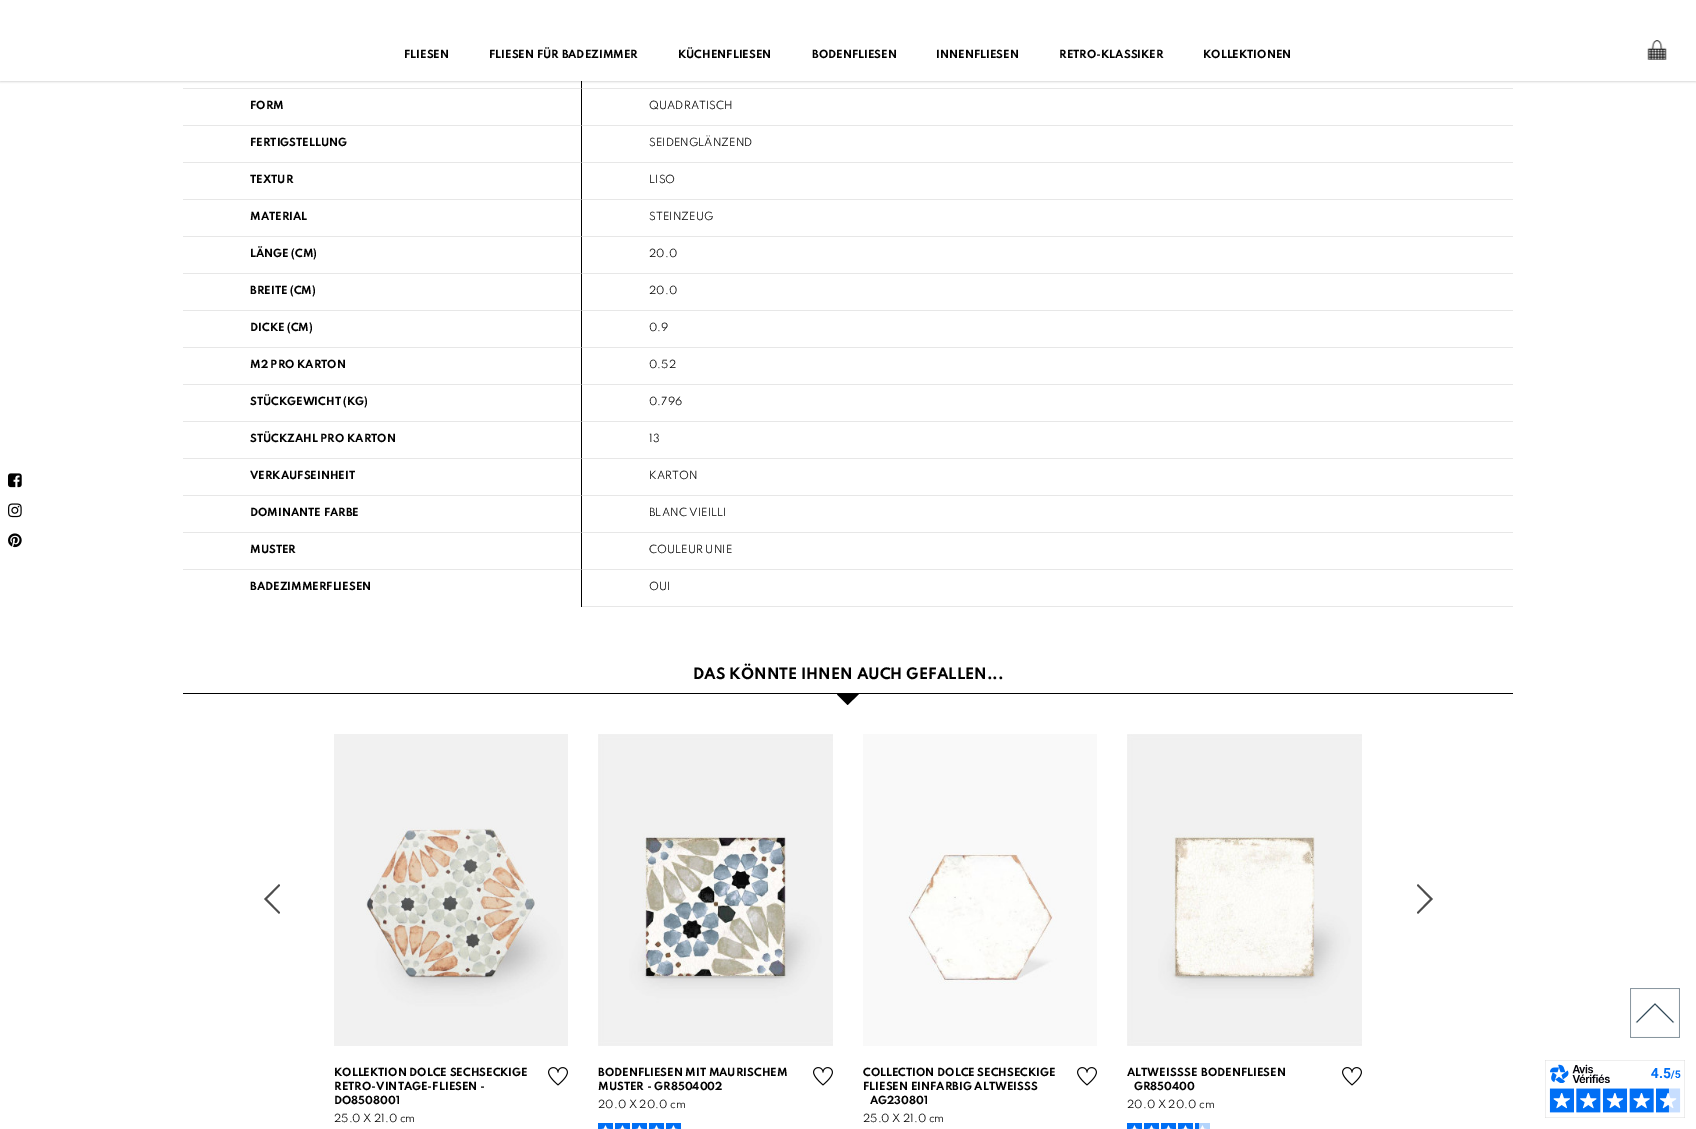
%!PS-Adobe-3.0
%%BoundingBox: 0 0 1696 1129
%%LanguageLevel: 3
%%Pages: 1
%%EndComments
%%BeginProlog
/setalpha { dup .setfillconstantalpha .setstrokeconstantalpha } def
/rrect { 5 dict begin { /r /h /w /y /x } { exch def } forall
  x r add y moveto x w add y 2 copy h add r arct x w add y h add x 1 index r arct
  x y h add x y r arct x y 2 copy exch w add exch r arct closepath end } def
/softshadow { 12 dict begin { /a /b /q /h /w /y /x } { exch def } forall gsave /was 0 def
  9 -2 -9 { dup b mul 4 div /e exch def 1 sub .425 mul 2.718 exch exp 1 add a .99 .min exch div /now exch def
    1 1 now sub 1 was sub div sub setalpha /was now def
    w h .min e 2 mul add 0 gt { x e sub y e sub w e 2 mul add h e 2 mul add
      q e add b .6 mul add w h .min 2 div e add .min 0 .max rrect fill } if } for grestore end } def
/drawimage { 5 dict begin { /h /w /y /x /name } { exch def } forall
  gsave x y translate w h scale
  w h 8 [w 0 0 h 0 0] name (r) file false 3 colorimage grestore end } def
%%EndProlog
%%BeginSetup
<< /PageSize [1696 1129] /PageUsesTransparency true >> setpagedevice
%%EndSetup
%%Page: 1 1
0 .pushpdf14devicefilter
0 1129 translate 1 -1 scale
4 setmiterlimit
1 setgray
0 0 1696 1129 rectfill
0 setgray
newpath 582 52 moveto 582 89 lineto 581 88 lineto 581 52 lineto closepath fill
0 1 1696 81 0 1 0.15 softshadow
1 setgray
0 0 1696 81 rectfill
(images/1.raw) 1647 40 20 20 drawimage
(images/2.raw) 8 473 14 15 drawimage
(images/3.raw) 8 503 14 15 drawimage
(images/4.raw) 8 533 14 15 drawimage
0.25 setalpha
0.627 setgray
newpath 582 89 moveto 183 89 lineto 183 88 lineto 581 88 lineto closepath fill
1 setalpha
0.906 setgray
582 88 931 1 rectfill
0 setgray
newpath 582 89 moveto 582 126 lineto 581 125 lineto 581 89 lineto closepath fill
0.25 setalpha
0.627 setgray
newpath 582 126 moveto 183 126 lineto 183 125 lineto 581 125 lineto closepath fill
1 setalpha
0.906 setgray
582 125 931 1 rectfill
0 setgray
newpath 582 126 moveto 582 163 lineto 581 162 lineto 581 126 lineto closepath fill
0.25 setalpha
0.627 setgray
newpath 582 163 moveto 183 163 lineto 183 162 lineto 581 162 lineto closepath fill
1 setalpha
0.906 setgray
582 162 931 1 rectfill
0 setgray
newpath 582 163 moveto 582 200 lineto 581 199 lineto 581 163 lineto closepath fill
0.25 setalpha
0.627 setgray
newpath 582 200 moveto 183 200 lineto 183 199 lineto 581 199 lineto closepath fill
1 setalpha
0.906 setgray
582 199 931 1 rectfill
0 setgray
newpath 582 200 moveto 582 237 lineto 581 236 lineto 581 200 lineto closepath fill
0.25 setalpha
0.627 setgray
newpath 582 237 moveto 183 237 lineto 183 236 lineto 581 236 lineto closepath fill
1 setalpha
0.906 setgray
582 236 931 1 rectfill
0 setgray
newpath 582 237 moveto 582 274 lineto 581 273 lineto 581 237 lineto closepath fill
0.25 setalpha
0.627 setgray
newpath 582 274 moveto 183 274 lineto 183 273 lineto 581 273 lineto closepath fill
1 setalpha
0.906 setgray
582 273 931 1 rectfill
0 setgray
newpath 582 274 moveto 582 311 lineto 581 310 lineto 581 274 lineto closepath fill
0.25 setalpha
0.627 setgray
newpath 582 311 moveto 183 311 lineto 183 310 lineto 581 310 lineto closepath fill
1 setalpha
0.906 setgray
582 310 931 1 rectfill
0 setgray
newpath 582 311 moveto 582 348 lineto 581 347 lineto 581 311 lineto closepath fill
0.25 setalpha
0.627 setgray
newpath 582 348 moveto 183 348 lineto 183 347 lineto 581 347 lineto closepath fill
1 setalpha
0.906 setgray
582 347 931 1 rectfill
0 setgray
newpath 582 348 moveto 582 385 lineto 581 384 lineto 581 348 lineto closepath fill
0.25 setalpha
0.627 setgray
newpath 582 385 moveto 183 385 lineto 183 384 lineto 581 384 lineto closepath fill
1 setalpha
0.906 setgray
582 384 931 1 rectfill
0 setgray
newpath 582 385 moveto 582 422 lineto 581 421 lineto 581 385 lineto closepath fill
0.25 setalpha
0.627 setgray
newpath 582 422 moveto 183 422 lineto 183 421 lineto 581 421 lineto closepath fill
1 setalpha
0.906 setgray
582 421 931 1 rectfill
0 setgray
newpath 582 422 moveto 582 459 lineto 581 458 lineto 581 422 lineto closepath fill
0.25 setalpha
0.627 setgray
newpath 582 459 moveto 183 459 lineto 183 458 lineto 581 458 lineto closepath fill
1 setalpha
0.906 setgray
582 458 931 1 rectfill
0 setgray
newpath 582 459 moveto 582 496 lineto 581 495 lineto 581 459 lineto closepath fill
0.25 setalpha
0.627 setgray
newpath 582 496 moveto 183 496 lineto 183 495 lineto 581 495 lineto closepath fill
1 setalpha
0.906 setgray
582 495 931 1 rectfill
0 setgray
newpath 582 496 moveto 582 533 lineto 581 532 lineto 581 496 lineto closepath fill
0.25 setalpha
0.627 setgray
newpath 582 533 moveto 183 533 lineto 183 532 lineto 581 532 lineto closepath fill
1 setalpha
0.906 setgray
582 532 931 1 rectfill
0 setgray
newpath 582 533 moveto 582 570 lineto 581 569 lineto 581 533 lineto closepath fill
0.25 setalpha
0.627 setgray
newpath 582 570 moveto 183 570 lineto 183 569 lineto 581 569 lineto closepath fill
1 setalpha
0.906 setgray
582 569 931 1 rectfill
0 setgray
581 570 1 37 rectfill
0.906 setgray
582 606 931 1 rectfill
0 setgray
183 693 1330 1 rectfill
newpath 859 694 moveto 847.5 705 lineto 837 694.5 lineto 837.5 694 lineto closepath fill
0.302 setgray
newpath 267 899 moveto 280 912.5 lineto 279 914 lineto 264 899 lineto 279 884 lineto 280 885.5 lineto closepath fill
newpath 1433 899 moveto 1418 914 lineto 1417 912.5 lineto 1430 899 lineto 1417 885.5 lineto 1418 884 lineto closepath fill
(images/5.raw) 334 734 234 312 drawimage
(images/6.raw) 548 1067 20 19 drawimage
(images/7.raw) 598 734 235 312 drawimage
0 0.435 0.961 setrgbcolor
598 1123 15 6 rectfill
(images/8.raw) 601 1125 9 4 drawimage
615 1123 15 6 rectfill
(images/8.raw) 618 1125 9 4 drawimage
632 1123 15 6 rectfill
(images/8.raw) 635 1125 9 4 drawimage
649 1123 15 6 rectfill
(images/8.raw) 652 1125 9 4 drawimage
666 1123 15 6 rectfill
(images/8.raw) 669 1125 9 4 drawimage
(images/6.raw) 813 1067 20 19 drawimage
(images/9.raw) 863 734 234 312 drawimage
(images/6.raw) 1077 1067 20 19 drawimage
(images/10.raw) 1127 734 235 312 drawimage
1127 1123 15 6 rectfill
(images/8.raw) 1130 1125 9 4 drawimage
1144 1123 15 6 rectfill
(images/8.raw) 1147 1125 9 4 drawimage
1161 1123 15 6 rectfill
(images/8.raw) 1164 1125 9 4 drawimage
1178 1123 15 6 rectfill
(images/8.raw) 1181 1125 9 4 drawimage
1195 1123 4 6 rectfill
0.702 0.831 0.988 setrgbcolor
1199 1123 11 6 rectfill
(images/11.raw) 1198 1125 9 4 drawimage
(images/6.raw) 1342 1067 20 19 drawimage
(images/12.raw) 1630 988 50 50 drawimage
(images/13.raw) 1545 1060 140 58 drawimage
/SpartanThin-Thin [10 0 0 -10 0 0] selectfont
0 setgray
404 58 moveto (FLIESEN) show
489 58 moveto (FLIESEN FÜR BADEZIMMER) show
678 58 moveto (KÜCHENFLIESEN) show
812 58 moveto (BODENFLIESEN) show
936 58 moveto (INNENFLIESEN) show
1059 58 moveto (RETRO-KLASSIKER) show
1203 58 moveto (KOLLEKTIONEN) show
250 109 moveto (FORM) show
/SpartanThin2-Thin [10 0 0 -10 0 0] selectfont
649 109 moveto (QUADRATISCH) show
/SpartanThin-Thin [10 0 0 -10 0 0] selectfont
250 146 moveto (FERTIGSTELLUNG) show
/SpartanThin2-Thin [10 0 0 -10 0 0] selectfont
649 146 moveto (SEIDENGLÄNZEND) show
/SpartanThin-Thin [10 0 0 -10 0 0] selectfont
250 183 moveto (TEXTUR) show
/SpartanThin2-Thin [10 0 0 -10 0 0] selectfont
649 183 moveto (LISO) show
/SpartanThin-Thin [10 0 0 -10 0 0] selectfont
250 220 moveto (MATERIAL) show
/SpartanThin2-Thin [10 0 0 -10 0 0] selectfont
649 220 moveto (STEINZEUG) show
/SpartanThin-Thin [10 0 0 -10 0 0] selectfont
250 257 moveto (LÄNGE \(CM\)) show
/SpartanThin2-Thin [10 0 0 -10 0 0] selectfont
649 257 moveto (20.0) show
/SpartanThin-Thin [10 0 0 -10 0 0] selectfont
250 294 moveto (BREITE \(CM\)) show
/SpartanThin2-Thin [10 0 0 -10 0 0] selectfont
649 294 moveto (20.0) show
/SpartanThin-Thin [10 0 0 -10 0 0] selectfont
250 331 moveto (DICKE \(CM\)) show
/SpartanThin2-Thin [10 0 0 -10 0 0] selectfont
649 331 moveto (0.9) show
/SpartanThin-Thin [10 0 0 -10 0 0] selectfont
250 368 moveto (M2 PRO KARTON) show
/SpartanThin2-Thin [10 0 0 -10 0 0] selectfont
649 368 moveto (0.52) show
/SpartanThin-Thin [10 0 0 -10 0 0] selectfont
250 405 moveto (STÜCKGEWICHT \(KG\)) show
/SpartanThin2-Thin [10 0 0 -10 0 0] selectfont
649 405 moveto (0.796) show
/SpartanThin-Thin [10 0 0 -10 0 0] selectfont
250 442 moveto (STÜCKZAHL PRO KARTON) show
/SpartanThin2-Thin [10 0 0 -10 0 0] selectfont
649 442 moveto (13) show
/SpartanThin-Thin [10 0 0 -10 0 0] selectfont
250 479 moveto (VERKAUFSEINHEIT) show
/SpartanThin2-Thin [10 0 0 -10 0 0] selectfont
649 479 moveto (KARTON) show
/SpartanThin-Thin [10 0 0 -10 0 0] selectfont
250 516 moveto (DOMINANTE FARBE) show
/SpartanThin2-Thin [10 0 0 -10 0 0] selectfont
649 516 moveto (BLANC VIEILLI) show
/SpartanThin-Thin [10 0 0 -10 0 0] selectfont
250 553 moveto (MUSTER) show
/SpartanThin2-Thin [10 0 0 -10 0 0] selectfont
649 553 moveto (COULEUR UNIE) show
/SpartanThin-Thin [10 0 0 -10 0 0] selectfont
250 590 moveto (BADEZIMMERFLIESEN) show
/SpartanThin2-Thin [10 0 0 -10 0 0] selectfont
649 590 moveto (OUI) show
/SpartanThin-Thin [14 0 0 -14 0 0] selectfont
693 679 moveto (DAS KÖNNTE IHNEN AUCH GEFALLEN...) show
/SpartanThin-Thin [10 0 0 -10 0 0] selectfont
334 1076 moveto (KOLLEKTION DOLCE SECHSECKIGE) show
334 1090 moveto (RETRO-VINTAGE-FLIESEN -) show
334 1104 moveto (DO8508001) show
/SpartanThin2-Thin [10 0 0 -10 0 0] selectfont
334 1122 moveto (25.0 X 21.0 cm) show
/SpartanThin-Thin [10 0 0 -10 0 0] selectfont
598 1076 moveto (BODENFLIESEN MIT MAURISCHEM) show
598 1090 moveto (MUSTER - GR8504002) show
/SpartanThin2-Thin [10 0 0 -10 0 0] selectfont
598 1108 moveto (20.0 X 20.0 cm) show
/SpartanThin-Thin [10 0 0 -10 0 0] selectfont
863 1076 moveto (COLLECTION DOLCE SECHSECKIGE) show
863 1090 moveto (FLIESEN EINFARBIG ALTWEISSS) show
870 1104 moveto (AG230801) show
/SpartanThin2-Thin [10 0 0 -10 0 0] selectfont
863 1122 moveto (25.0 X 21.0 cm) show
/SpartanThin-Thin [10 0 0 -10 0 0] selectfont
1127 1076 moveto (ALTWEISS) show
1184 1076 moveto 1 0 32 (SE BODENFLIESEN) widthshow
1134 1090 moveto (GR850400) show
/SpartanThin2-Thin [10 0 0 -10 0 0] selectfont
1127 1108 moveto (20.0 X 20.0 cm) show
.poppdf14devicefilter showpage
%%EOF
